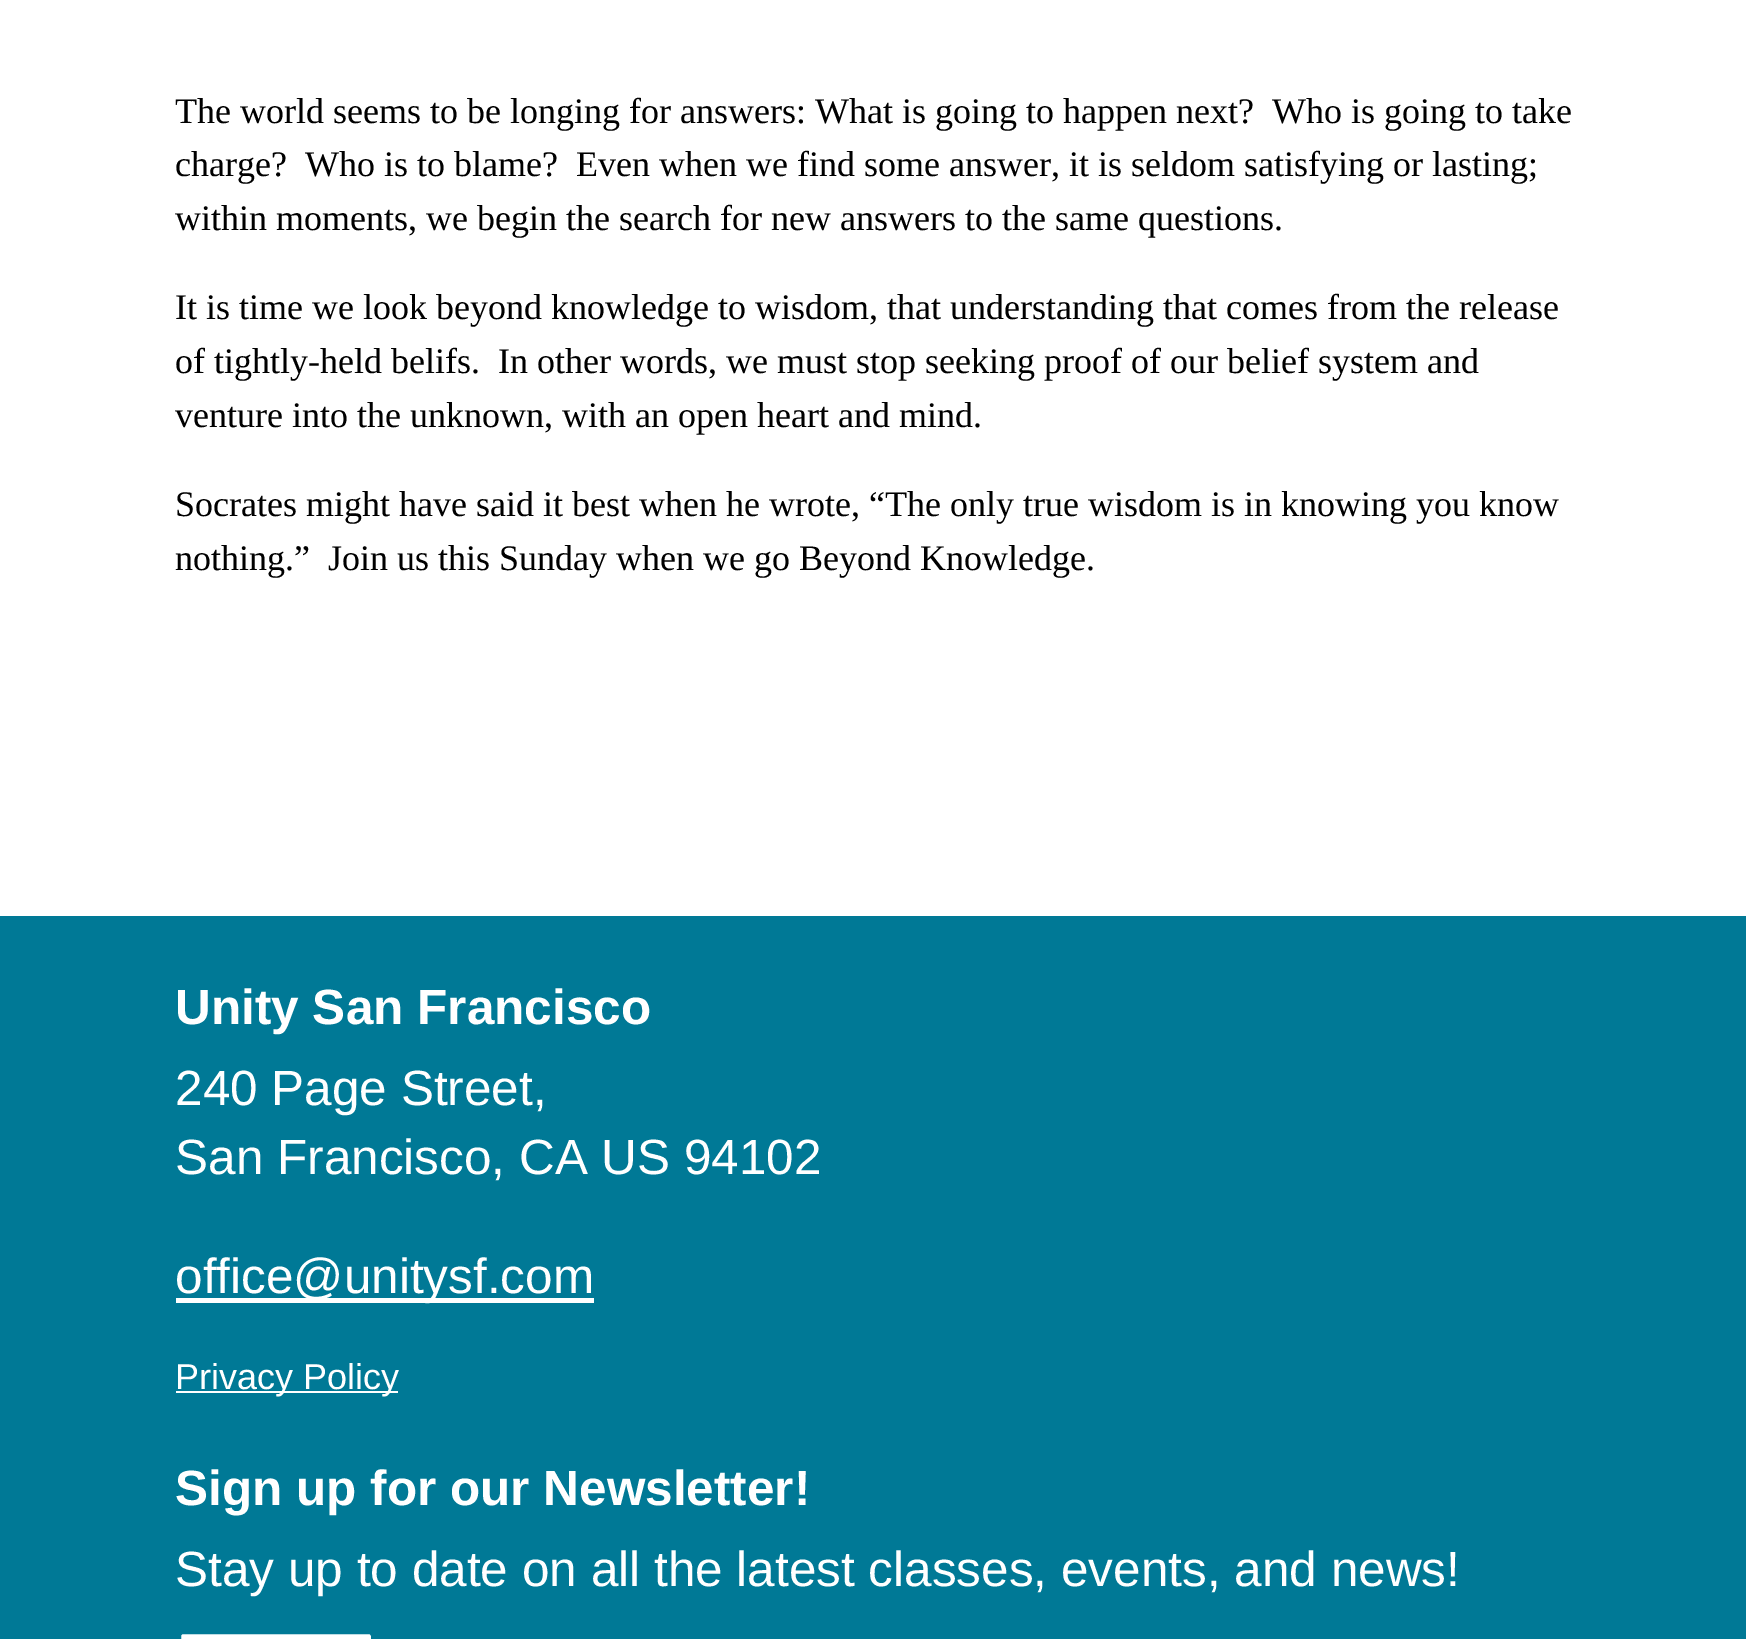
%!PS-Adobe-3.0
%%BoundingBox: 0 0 1746 1639
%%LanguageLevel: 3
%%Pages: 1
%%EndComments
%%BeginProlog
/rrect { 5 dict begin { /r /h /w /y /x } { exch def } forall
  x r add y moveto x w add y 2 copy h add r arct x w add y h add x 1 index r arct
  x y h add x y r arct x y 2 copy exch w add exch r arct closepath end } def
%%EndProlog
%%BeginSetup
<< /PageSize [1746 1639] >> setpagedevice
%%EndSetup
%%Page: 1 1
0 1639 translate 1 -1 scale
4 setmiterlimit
1 setgray
0 0 1746 1639 rectfill
0 0.475 0.588 setrgbcolor
0 916 1746 723 rectfill
1 setgray
176 1298 418 5 rectfill
176 1391 222 2 rectfill
178.5 1631.5 195 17 4.5 rrect gsave fill grestore
0 0.475 0.588 setrgbcolor
5 setlinewidth
stroke
/LiberationSerif-Regular [36 0 0 -36 0 0] selectfont
0 setgray
175 123 moveto (The world seems to be longing for answers: What is going to happen next?  Who is going to take) show
175 176 moveto (charge?  Who is to blame?  Even when we find some answer, it is seldom satisfying or lasting;) show
175 230 moveto (within moments, we begin the search for new answers to the same questions.) show
175 319 moveto (It is time we look beyond knowledge to wisdom, that understanding that comes from the release) show
175 373 moveto (of tightly-held belifs.  In other words, we must stop seeking proof of our belief system and) show
175 427 moveto (venture into the unknown, with an open heart and mind.) show
175 516 moveto (Socrates might have said it best when he wrote, “The only true wisdom is in knowing you know) show
175 570 moveto (nothing.”  Join us this Sunday when we go Beyond Knowledge.) show
/LiberationSans-Bold [49.5 0 0 -49.5 0 0] selectfont
1 setgray
175 1024 moveto (Unity San Francisco) show
/LiberationSans-Regular [49.5 0 0 -49.5 0 0] selectfont
175 1105 moveto (240 Page Street,) show
175 1174 moveto (San Francisco, CA US 94102) show
175 1293 moveto (office@unitysf.com) show
/LiberationSans-Regular [36 0 0 -36 0 0] selectfont
175 1389 moveto (Privacy Policy) show
/LiberationSans-Bold [49.5 0 0 -49.5 0 0] selectfont
175 1505 moveto (Sign up for our Newsletter!) show
/LiberationSans-Regular [49.5 0 0 -49.5 0 0] selectfont
175 1586 moveto (Stay up to date on all the latest classes, events, and news!) show
showpage
%%EOF
